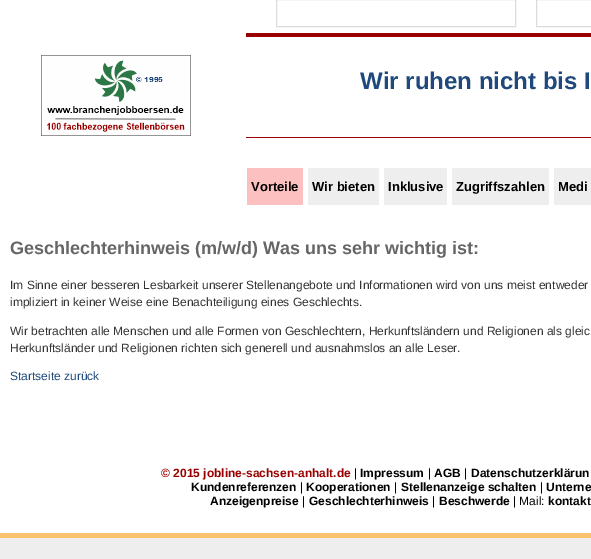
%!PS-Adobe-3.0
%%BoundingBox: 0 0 591 559
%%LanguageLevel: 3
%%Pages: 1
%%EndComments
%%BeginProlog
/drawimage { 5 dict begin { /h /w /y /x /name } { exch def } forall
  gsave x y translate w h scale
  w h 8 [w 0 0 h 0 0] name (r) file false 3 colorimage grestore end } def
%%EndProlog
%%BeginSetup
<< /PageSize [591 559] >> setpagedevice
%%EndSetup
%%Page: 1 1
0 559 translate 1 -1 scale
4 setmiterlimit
1 setgray
0 0 591 559 rectfill
(images/1.raw) 41 55 150 81 drawimage
0.6 0 0 setrgbcolor
246 33 345 4 rectfill
0.863 setgray
276.5 -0.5 239 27 rectstroke
536.5 -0.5 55 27 rectstroke
0.6 0 0 setrgbcolor
246 137 345 1 rectfill
0.992 0.753 0.753 setrgbcolor
247 168 56 37 rectfill
0.933 setgray
308 168 71 37 rectfill
384 168 63 37 rectfill
452 168 97 37 rectfill
554 168 37 37 rectfill
0.98 0.761 0.435 setrgbcolor
0 533 591 5 rectfill
0.933 setgray
0 538 591 21 rectfill
/LiberationSans-Bold [24 0 0 -24 0 0] selectfont
0.122 0.286 0.49 setrgbcolor
360 89 moveto (Wir ruhen nicht bis I) show
/LiberationSans-Bold [13 0 0 -13 0 0] selectfont
0 setgray
251 191 moveto (Vorteile) show
312 191 moveto (Wir bieten) show
388 191 moveto (Inklusive) show
456 191 moveto (Zugriffszahlen) show
558 191 moveto (Medi) show
/LiberationSans-Bold [18 0 0 -18 0 0] selectfont
0.4 setgray
10 254 moveto (Geschlechterhinweis \(m/w/d\) Was uns sehr wichtig ist:) show
/LiberationSans-Regular [12 0 0 -12 0 0] selectfont
0.2 setgray
10 289 moveto (Im Sinne einer besseren Lesbarkeit unserer Stellenangebote und Informationen wird von uns meist entweder) show
10 306 moveto (impliziert in keiner Weise eine Benachteiligung eines Geschlechts.) show
10 335 moveto (Wir betrachten alle Menschen und alle Formen von Geschlechtern, Herkunftsländern und Religionen als gleic) show
10 352 moveto (Herkunftsländer und Religionen richten sich generell und ausnahmslos an alle Leser.) show
0.122 0.286 0.49 setrgbcolor
10 380 moveto (Startseite zurück) show
/LiberationSans-Bold [12 0 0 -12 0 0] selectfont
0.6 0 0 setrgbcolor
161 477 moveto (© 2015 jobline-sachsen-anhalt.de) show
/LiberationSans-Regular [12 0 0 -12 0 0] selectfont
0 setgray
354 477 moveto (|) show
/LiberationSans-Bold [12 0 0 -12 0 0] selectfont
360 477 moveto (Impressum) show
/LiberationSans-Regular [12 0 0 -12 0 0] selectfont
428 477 moveto (|) show
/LiberationSans-Bold [12 0 0 -12 0 0] selectfont
434 477 moveto (AGB) show
/LiberationSans-Regular [12 0 0 -12 0 0] selectfont
464 477 moveto (|) show
/LiberationSans-Bold [12 0 0 -12 0 0] selectfont
471 477 moveto (Datenschutzerklärun) show
191 491 moveto (Kundenreferenzen) show
/LiberationSans-Regular [12 0 0 -12 0 0] selectfont
300 491 moveto (|) show
/LiberationSans-Bold [12 0 0 -12 0 0] selectfont
306 491 moveto (Kooperationen) show
/LiberationSans-Regular [12 0 0 -12 0 0] selectfont
394 491 moveto (|) show
/LiberationSans-Bold [12 0 0 -12 0 0] selectfont
401 491 moveto (Stellenanzeige schalten) show
/LiberationSans-Regular [12 0 0 -12 0 0] selectfont
540 491 moveto (|) show
/LiberationSans-Bold [12 0 0 -12 0 0] selectfont
546 491 moveto (Unterne) show
210 505 moveto (Anzeigenpreise) show
/LiberationSans-Regular [12 0 0 -12 0 0] selectfont
302 505 moveto (|) show
/LiberationSans-Bold [12 0 0 -12 0 0] selectfont
309 505 moveto (Geschlechterhinweis) show
/LiberationSans-Regular [12 0 0 -12 0 0] selectfont
432 505 moveto (|) show
/LiberationSans-Bold [12 0 0 -12 0 0] selectfont
439 505 moveto (Beschwerde) show
/LiberationSans-Regular [12 0 0 -12 0 0] selectfont
513 505 moveto (| Mail:) show
/LiberationSans-Bold [12 0 0 -12 0 0] selectfont
548 505 moveto (kontakt) show
showpage
%%EOF
